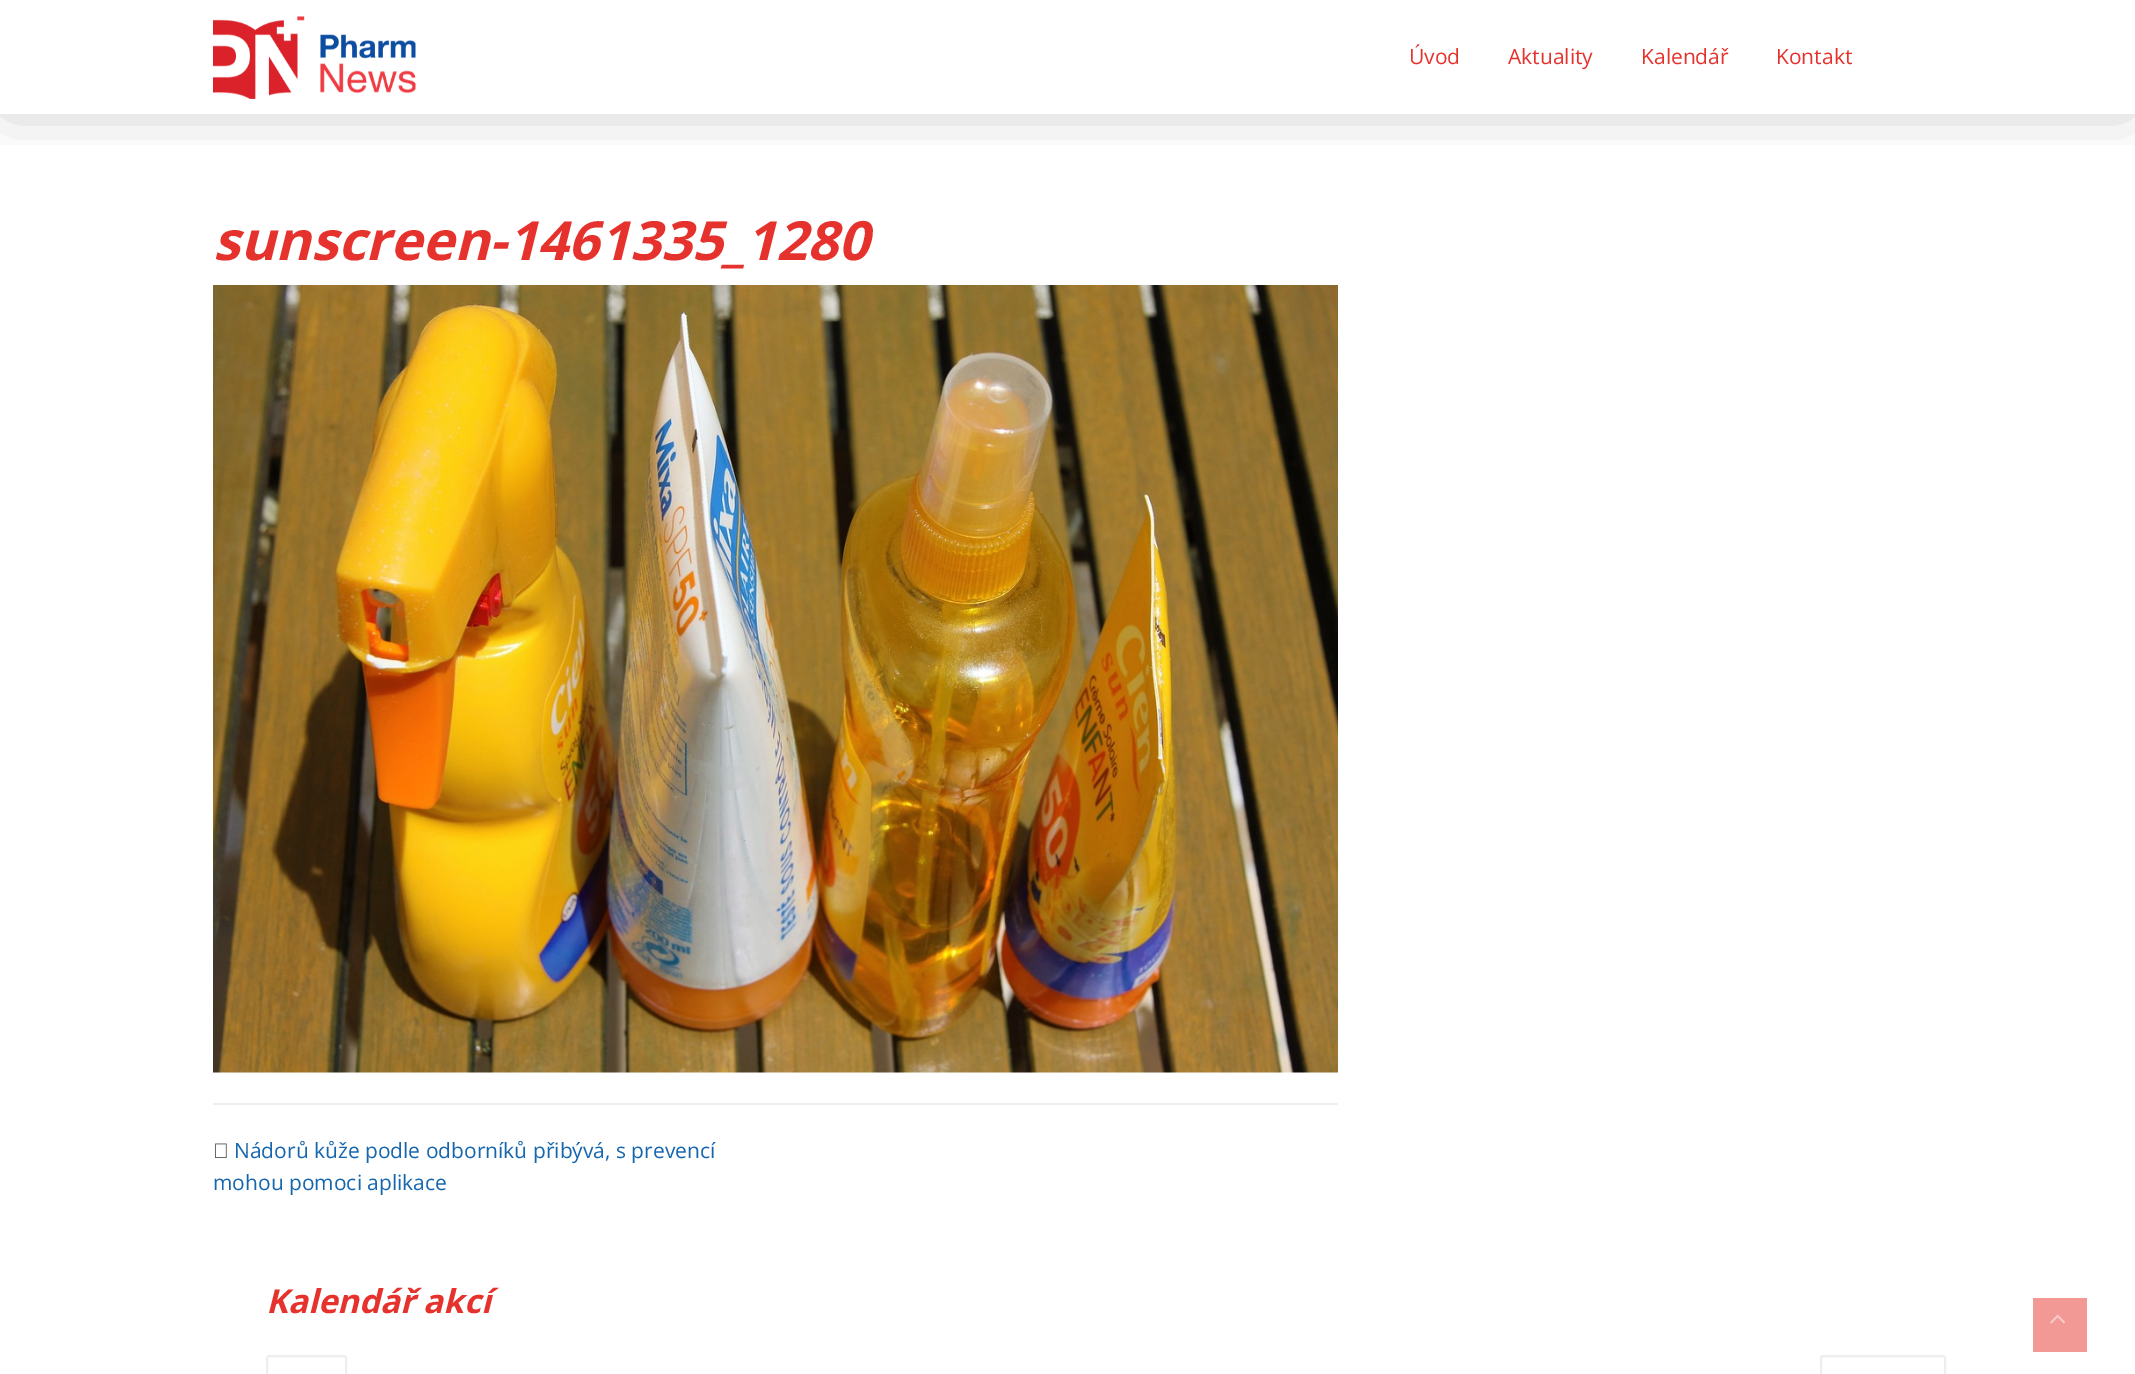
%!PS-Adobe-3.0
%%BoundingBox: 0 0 2135 1374
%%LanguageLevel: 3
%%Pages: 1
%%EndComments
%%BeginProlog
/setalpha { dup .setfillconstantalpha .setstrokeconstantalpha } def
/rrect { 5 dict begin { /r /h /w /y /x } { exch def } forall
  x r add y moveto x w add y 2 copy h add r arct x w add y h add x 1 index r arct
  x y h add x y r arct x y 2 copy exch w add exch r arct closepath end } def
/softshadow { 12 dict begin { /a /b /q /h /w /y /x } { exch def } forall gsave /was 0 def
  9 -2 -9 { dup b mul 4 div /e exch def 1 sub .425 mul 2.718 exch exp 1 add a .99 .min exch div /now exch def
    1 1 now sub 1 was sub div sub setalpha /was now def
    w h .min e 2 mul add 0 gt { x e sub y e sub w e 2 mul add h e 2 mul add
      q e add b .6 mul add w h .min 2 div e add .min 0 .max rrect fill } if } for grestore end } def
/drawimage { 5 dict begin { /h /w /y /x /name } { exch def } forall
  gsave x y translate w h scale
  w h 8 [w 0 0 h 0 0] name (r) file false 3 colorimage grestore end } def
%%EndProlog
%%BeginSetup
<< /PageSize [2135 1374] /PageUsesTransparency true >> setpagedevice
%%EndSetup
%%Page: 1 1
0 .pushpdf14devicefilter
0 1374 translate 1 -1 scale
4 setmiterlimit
1 setgray
0 0 2135 1374 rectfill
gsave
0 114 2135 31 rectclip
0 setgray
9 9 2118 96 0 28 0.27 softshadow
grestore
(images/1.raw) 213 16 203 83 drawimage
(images/2.raw) 213 285 1125 788 drawimage
0.933 setgray
213 1103 1125 2 rectfill
(images/3.raw) 215 1143 12 15 drawimage
2 setlinewidth
267 1356 79 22 2 rrect stroke
1821 1356 124 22 2 rrect stroke
0.949 0.6 0.588 setrgbcolor
2033 1298 54 54 rectfill
(images/4.raw) 2050 1314 16 10 drawimage
/OpenSans-Regular [21 0 0 -21 0 0] selectfont
0.898 0.196 0.176 setrgbcolor
1409 64 moveto (Úvod) show
1508 64 moveto (Aktuality) show
1641 64 moveto (Kalendář) show
1776 64 moveto (Kontakt) show
/OpenSans-BoldItalic [54 0 0 -54 0 0] selectfont
213 260 moveto (sunscreen-1461335_1280) show
/OpenSans-Regular [21 0 0 -21 0 0] selectfont
0.082 0.4 0.678 setrgbcolor
234 1158 moveto (Nádorů kůže podle odborníků přibývá, s prevencí) show
213 1190 moveto (mohou pomoci aplikace) show
/OpenSans-BoldItalic [33 0 0 -33 0 0] selectfont
0.898 0.196 0.176 setrgbcolor
266 1313 moveto (Kalendář akcí) show
.poppdf14devicefilter showpage
%%EOF
